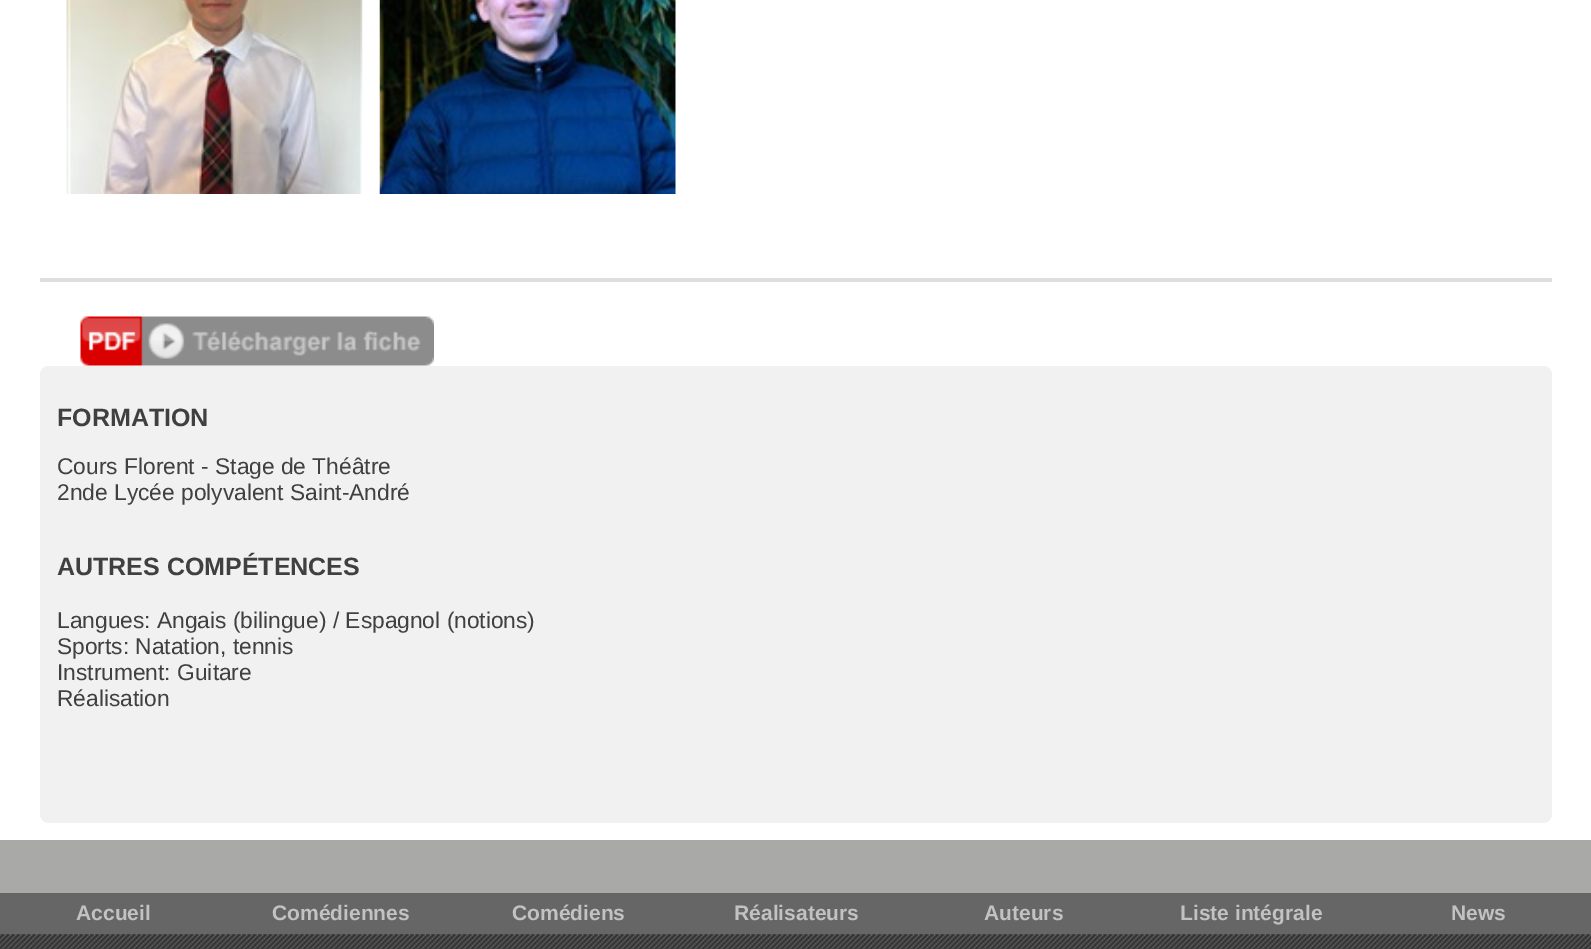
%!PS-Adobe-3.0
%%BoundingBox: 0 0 1591 949
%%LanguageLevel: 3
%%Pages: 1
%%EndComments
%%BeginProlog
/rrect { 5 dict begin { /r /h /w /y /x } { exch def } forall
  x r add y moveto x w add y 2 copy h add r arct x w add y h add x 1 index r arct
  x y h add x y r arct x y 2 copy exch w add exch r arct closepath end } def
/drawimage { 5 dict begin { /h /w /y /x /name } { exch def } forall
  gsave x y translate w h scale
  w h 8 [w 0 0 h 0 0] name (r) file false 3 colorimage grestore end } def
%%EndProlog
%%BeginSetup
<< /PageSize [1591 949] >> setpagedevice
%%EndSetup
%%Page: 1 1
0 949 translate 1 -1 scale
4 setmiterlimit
1 setgray
0 0 1591 949 rectfill
(images/1.raw) 66 0 297 194 drawimage
(images/2.raw) 379 0 297 194 drawimage
0.871 setgray
40 278 1512 4 rectfill
(images/3.raw) 80 316 354 50 drawimage
0.945 setgray
40 366 1512 457 9 rrect fill
0.663 0.663 0.655 setrgbcolor
0 840 1591 53 rectfill
0.4 setgray
0 893 1591 42 rectfill
(images/4.raw) 0 934 1591 15 drawimage
/LiberationSans-Bold [25 0 0 -25 0 0] selectfont
0.251 setgray
57 426 moveto (FORMATION) show
/LiberationSans-Regular [22.75 0 0 -22.75 0 0] selectfont
57 474 moveto (Cours Florent - Stage de Théâtre) show
57 500 moveto (2nde Lycée polyvalent Saint-André) show
/LiberationSans-Bold [25 0 0 -25 0 0] selectfont
57 575 moveto (AUTRES COMPÉTENCES) show
/LiberationSans-Regular [22.75 0 0 -22.75 0 0] selectfont
57 628 moveto (Langues: Angais \(bilingue\) / Espagnol \(notions\)) show
57 654 moveto (Sports: Natation, tennis) show
57 680 moveto (Instrument: Guitare) show
57 706 moveto (Réalisation) show
/LiberationSans-Bold [21 0 0 -21 0 0] selectfont
0.761 setgray
76 920 moveto (Accueil) show
272 920 moveto (Comédiennes) show
512 920 moveto (Comédiens) show
734 920 moveto (Réalisateurs) show
984 920 moveto (Auteurs) show
1180 920 moveto (Liste intégrale) show
1451 920 moveto (News) show
showpage
%%EOF
